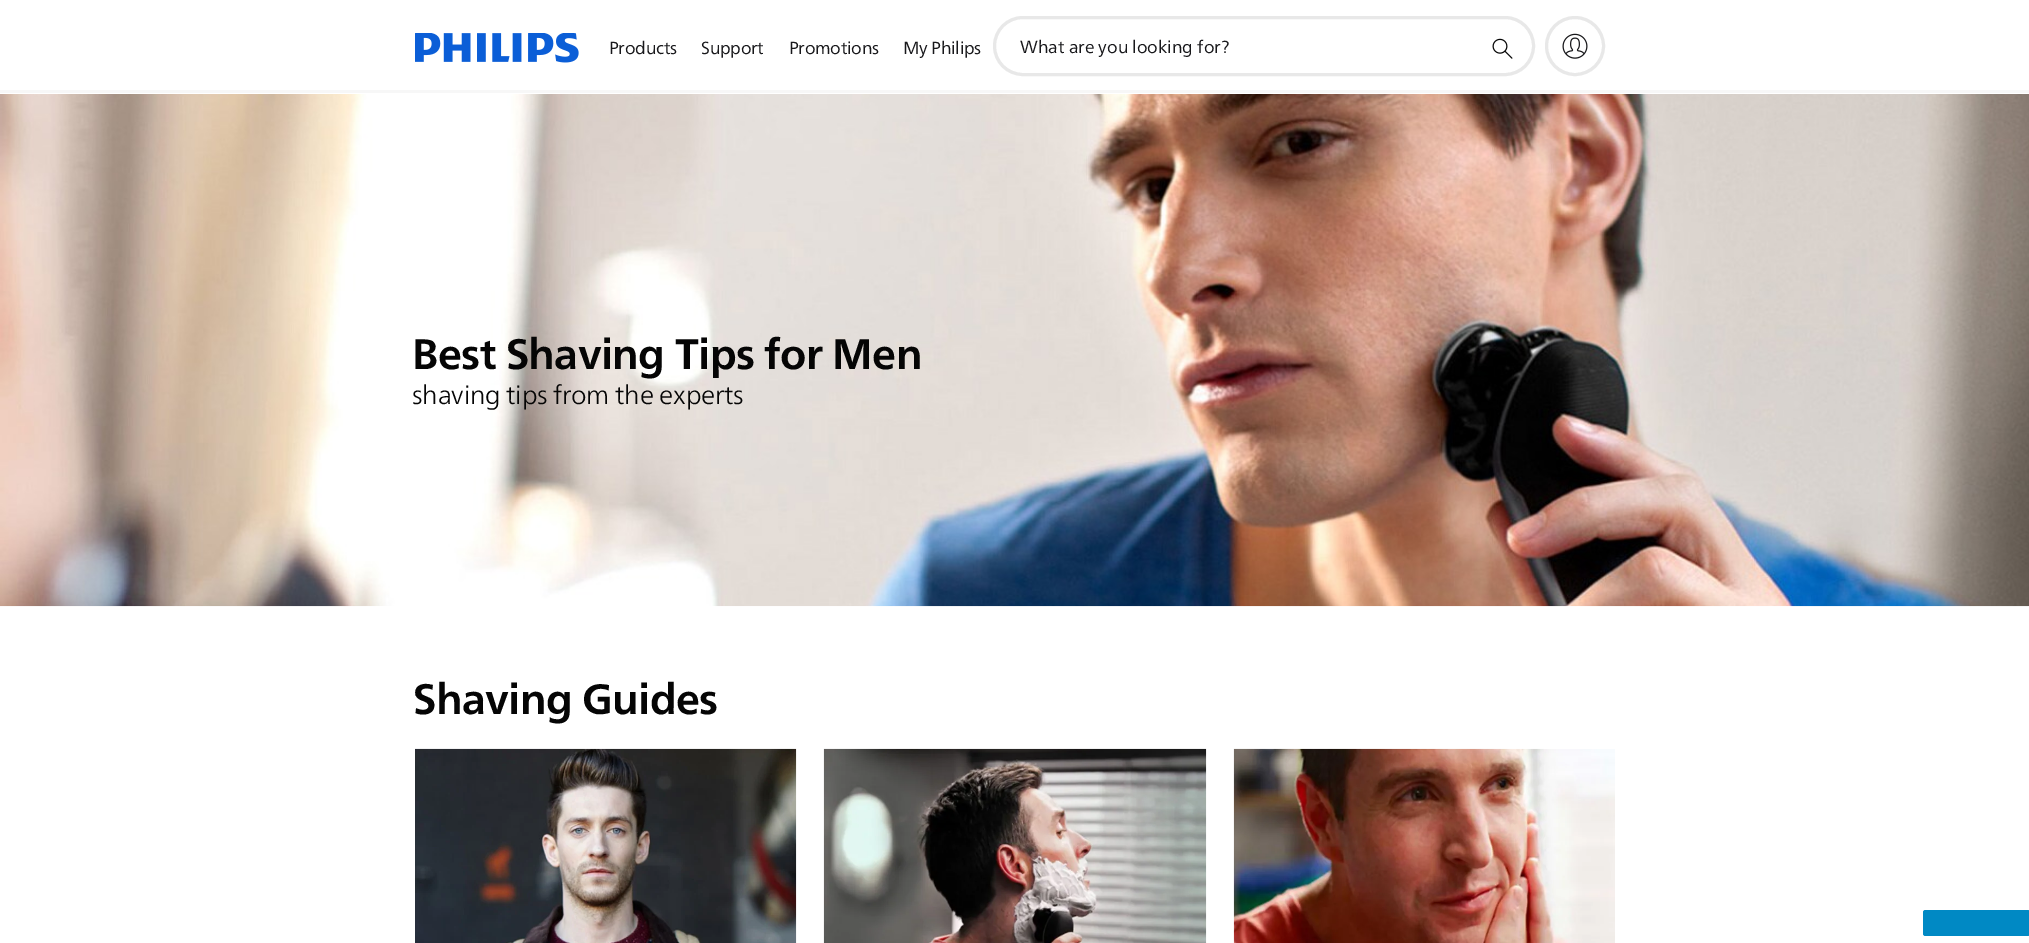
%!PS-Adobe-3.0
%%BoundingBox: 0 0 2029 943
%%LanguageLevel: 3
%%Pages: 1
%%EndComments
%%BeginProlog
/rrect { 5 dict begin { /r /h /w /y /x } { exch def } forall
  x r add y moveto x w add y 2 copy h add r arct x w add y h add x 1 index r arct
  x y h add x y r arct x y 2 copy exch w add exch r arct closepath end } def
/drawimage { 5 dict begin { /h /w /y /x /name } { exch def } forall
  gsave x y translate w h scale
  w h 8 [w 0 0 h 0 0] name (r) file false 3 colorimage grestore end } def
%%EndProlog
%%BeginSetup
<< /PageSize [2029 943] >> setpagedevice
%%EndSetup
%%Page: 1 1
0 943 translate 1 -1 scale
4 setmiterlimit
1 setgray
0 0 2029 943 rectfill
(images/1.raw) 415 33 164 30 drawimage
0.969 setgray
0 90 2029 3 rectfill
0.91 setgray
3 setlinewidth
994.5 17.5 539 57 28.5 rrect stroke
(images/2.raw) 1492 38 21 21 drawimage
newpath 1575 46 28.5 0 360 arc closepath stroke
(images/3.raw) 1562 33 26 26 drawimage
(images/4.raw) 0 94 2029 513 drawimage
(images/5.raw) 415 748 382 195 drawimage
(images/6.raw) 823 748 384 195 drawimage
(images/7.raw) 1233 748 382 195 drawimage
0 0.537 0.769 setrgbcolor
1923 910 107 26 2.5 rrect fill
/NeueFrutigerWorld-Regular [17.5 0 0 -17.5 0 0] selectfont
0.094 0.094 0.106 setrgbcolor
609 54 moveto -0.25 0 (Products) ashow
701 54 moveto -0.25 0 (Support) ashow
789 54 moveto -0.25 0 (Promotions) ashow
903 54 moveto -0.25 0 (My Philips) ashow
1020 53 moveto (What are you looking for?) show
/NeueFrutigerWorld-Bold [42.5 0 0 -42.5 0 0] selectfont
0.02 setgray
412 369 moveto -0.6 0 (Best Shaving Tips for Men) ashow
/NeueFrutigerWorld-Light [26.25 0 0 -26.25 0 0] selectfont
412 404 moveto -0.25 0 (shaving tips from the experts) ashow
/NeueFrutigerWorld-Bold [42.5 0 0 -42.5 0 0] selectfont
413 714 moveto -0.6 0 (Shaving Guides) ashow
showpage
%%EOF
